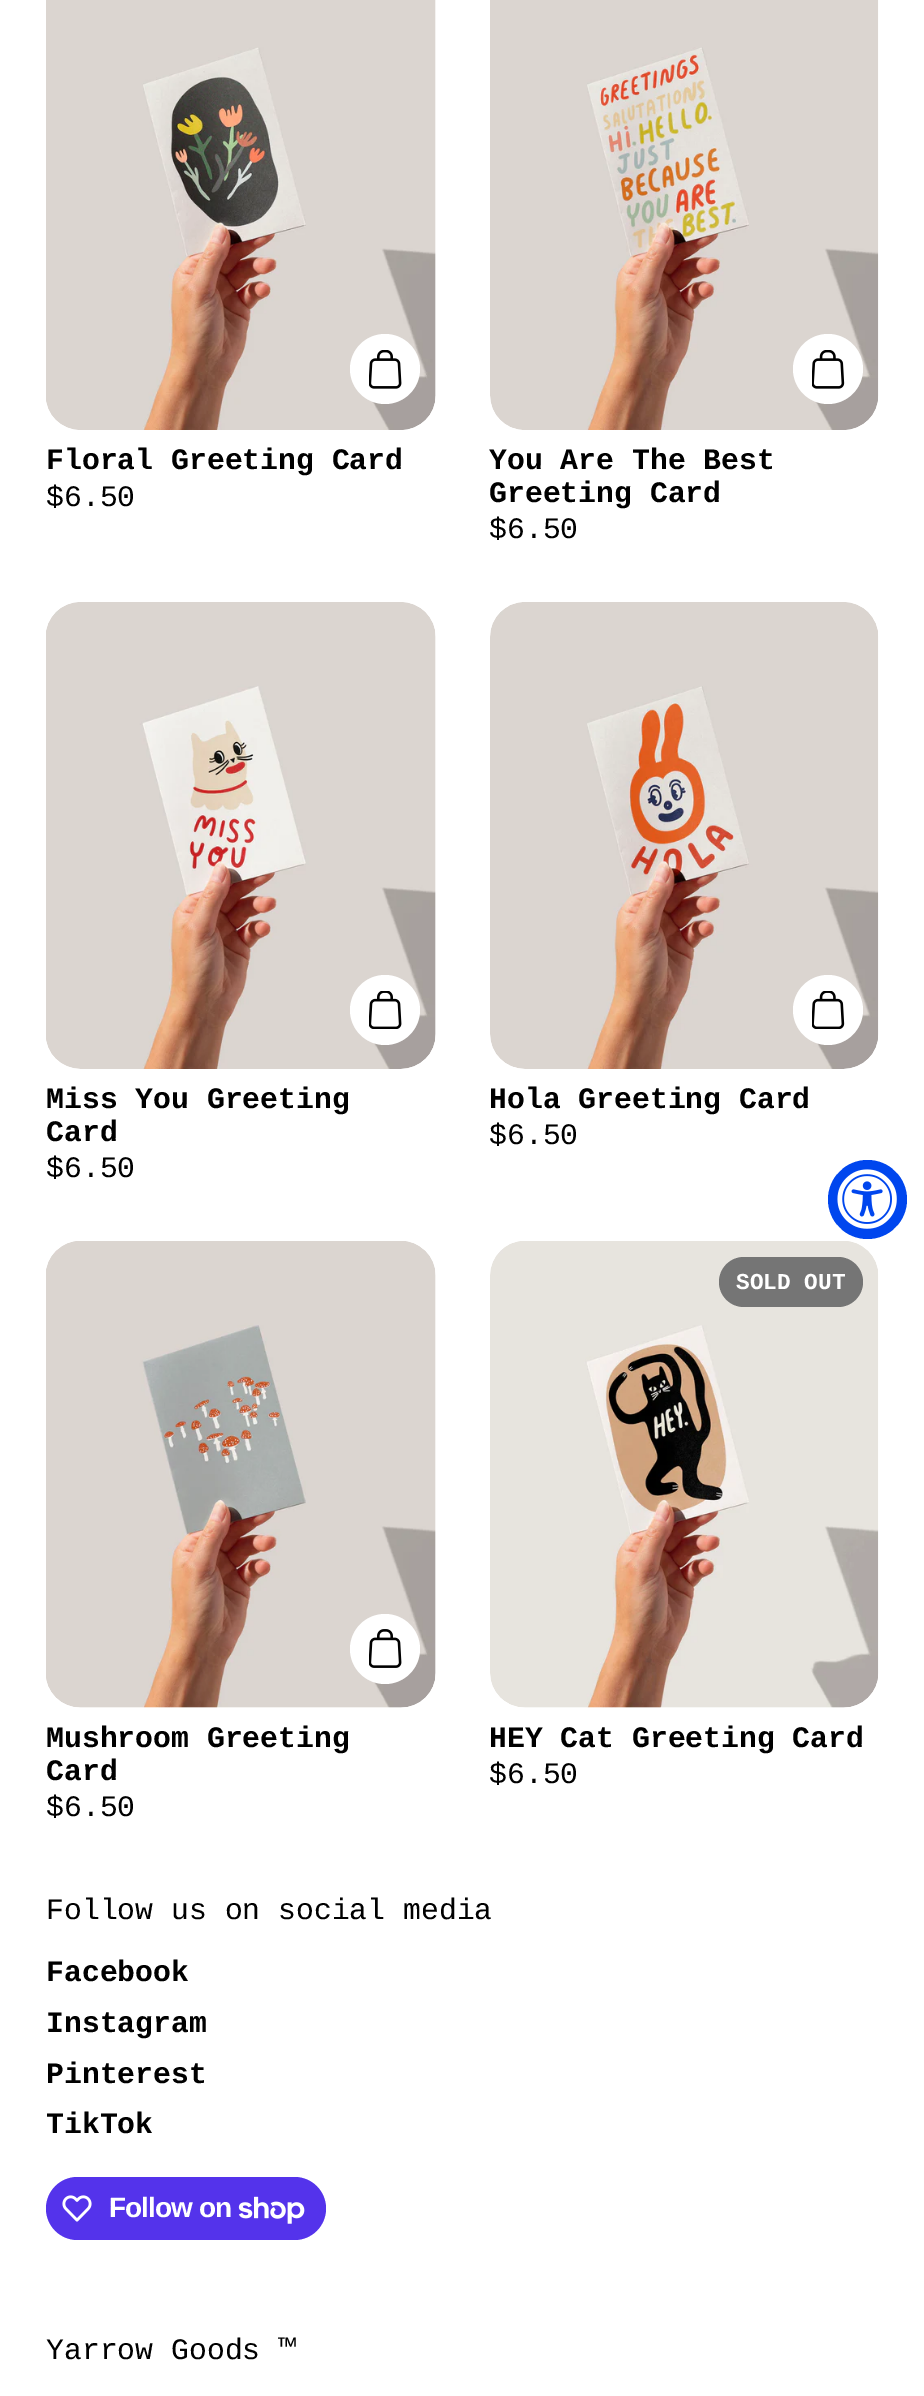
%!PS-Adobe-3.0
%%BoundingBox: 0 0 924 2396
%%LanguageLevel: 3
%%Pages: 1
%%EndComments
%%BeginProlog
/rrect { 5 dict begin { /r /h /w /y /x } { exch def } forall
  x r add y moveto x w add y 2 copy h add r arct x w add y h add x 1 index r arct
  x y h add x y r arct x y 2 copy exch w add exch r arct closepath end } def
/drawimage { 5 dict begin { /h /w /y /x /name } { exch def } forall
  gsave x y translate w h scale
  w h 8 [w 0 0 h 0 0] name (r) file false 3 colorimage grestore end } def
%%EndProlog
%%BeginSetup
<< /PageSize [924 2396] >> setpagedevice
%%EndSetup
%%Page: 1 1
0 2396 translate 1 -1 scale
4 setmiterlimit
1 setgray
0 0 924 2396 rectfill
(images/1.raw) 46 0 390 430 drawimage
newpath 385 369 35 0 360 arc closepath fill
(images/2.raw) 369 350 33 39 drawimage
(images/3.raw) 490 0 389 430 drawimage
newpath 828 369 35 0 360 arc closepath fill
(images/4.raw) 812 350 33 39 drawimage
(images/5.raw) 46 602 390 467 drawimage
newpath 385 1010 35 0 360 arc closepath fill
(images/6.raw) 369 991 33 38 drawimage
(images/7.raw) 490 602 389 467 drawimage
newpath 828 1010 35 0 360 arc closepath fill
(images/8.raw) 812 991 33 38 drawimage
(images/9.raw) 46 1241 390 467 drawimage
newpath 385 1649 35 0 360 arc closepath fill
(images/10.raw) 369 1629 33 39 drawimage
(images/11.raw) 490 1241 389 467 drawimage
0.459 setgray
719 1257 144 50 25 rrect fill
0.329 0.2 0.922 setrgbcolor
46 2177 280 63 31.5 rrect fill
(images/12.raw) 62 2195 30 27 drawimage
(images/13.raw) 238 2196 67 28 drawimage
0 0.275 0.933 setrgbcolor
newpath 867.5 1199.5 39.5 0 360 arc closepath fill
(images/14.raw) 837 1169 60 60 drawimage
/LiberationMono-Bold [29.75 0 0 -29.75 0 0] selectfont
0 setgray
46 469 moveto (Floral Greeting Card) show
/LiberationMono-Regular [29.75 0 0 -29.75 0 0] selectfont
46 506 moveto ($6.50) show
/LiberationMono-Bold [29.75 0 0 -29.75 0 0] selectfont
489 469 moveto (You Are The Best) show
489 502 moveto (Greeting Card) show
/LiberationMono-Regular [29.75 0 0 -29.75 0 0] selectfont
489 538 moveto ($6.50) show
/LiberationMono-Bold [29.75 0 0 -29.75 0 0] selectfont
46 1108 moveto (Miss You Greeting) show
46 1141 moveto (Card) show
/LiberationMono-Regular [29.75 0 0 -29.75 0 0] selectfont
46 1177 moveto ($6.50) show
/LiberationMono-Bold [29.75 0 0 -29.75 0 0] selectfont
489 1108 moveto (Hola Greeting Card) show
/LiberationMono-Regular [29.75 0 0 -29.75 0 0] selectfont
489 1144 moveto ($6.50) show
/LiberationMono-Bold [29.75 0 0 -29.75 0 0] selectfont
46 1747 moveto (Mushroom Greeting) show
46 1780 moveto (Card) show
/LiberationMono-Regular [29.75 0 0 -29.75 0 0] selectfont
46 1816 moveto ($6.50) show
/LiberationMono-Bold [22.75 0 0 -22.75 0 0] selectfont
1 setgray
736 1289 moveto (SOLD OUT) show
/LiberationMono-Bold [29.75 0 0 -29.75 0 0] selectfont
0 setgray
489 1747 moveto (HEY Cat Greeting Card) show
/LiberationMono-Regular [29.75 0 0 -29.75 0 0] selectfont
489 1783 moveto ($6.50) show
46 1919 moveto (Follow us on social media) show
/LiberationMono-Bold [29.75 0 0 -29.75 0 0] selectfont
46 1981 moveto (Facebook) show
46 2032 moveto (Instagram) show
46 2083 moveto (Pinterest) show
46 2133 moveto (TikTok) show
/LiberationSans-Bold [28 0 0 -28 0 0] selectfont
1 setgray
109 2217 moveto -0.9 0 (Follow on) ashow
/LiberationMono-Regular [29.75 0 0 -29.75 0 0] selectfont
0 setgray
46 2359 moveto (Yarrow Goods ™) show
showpage
%%EOF
